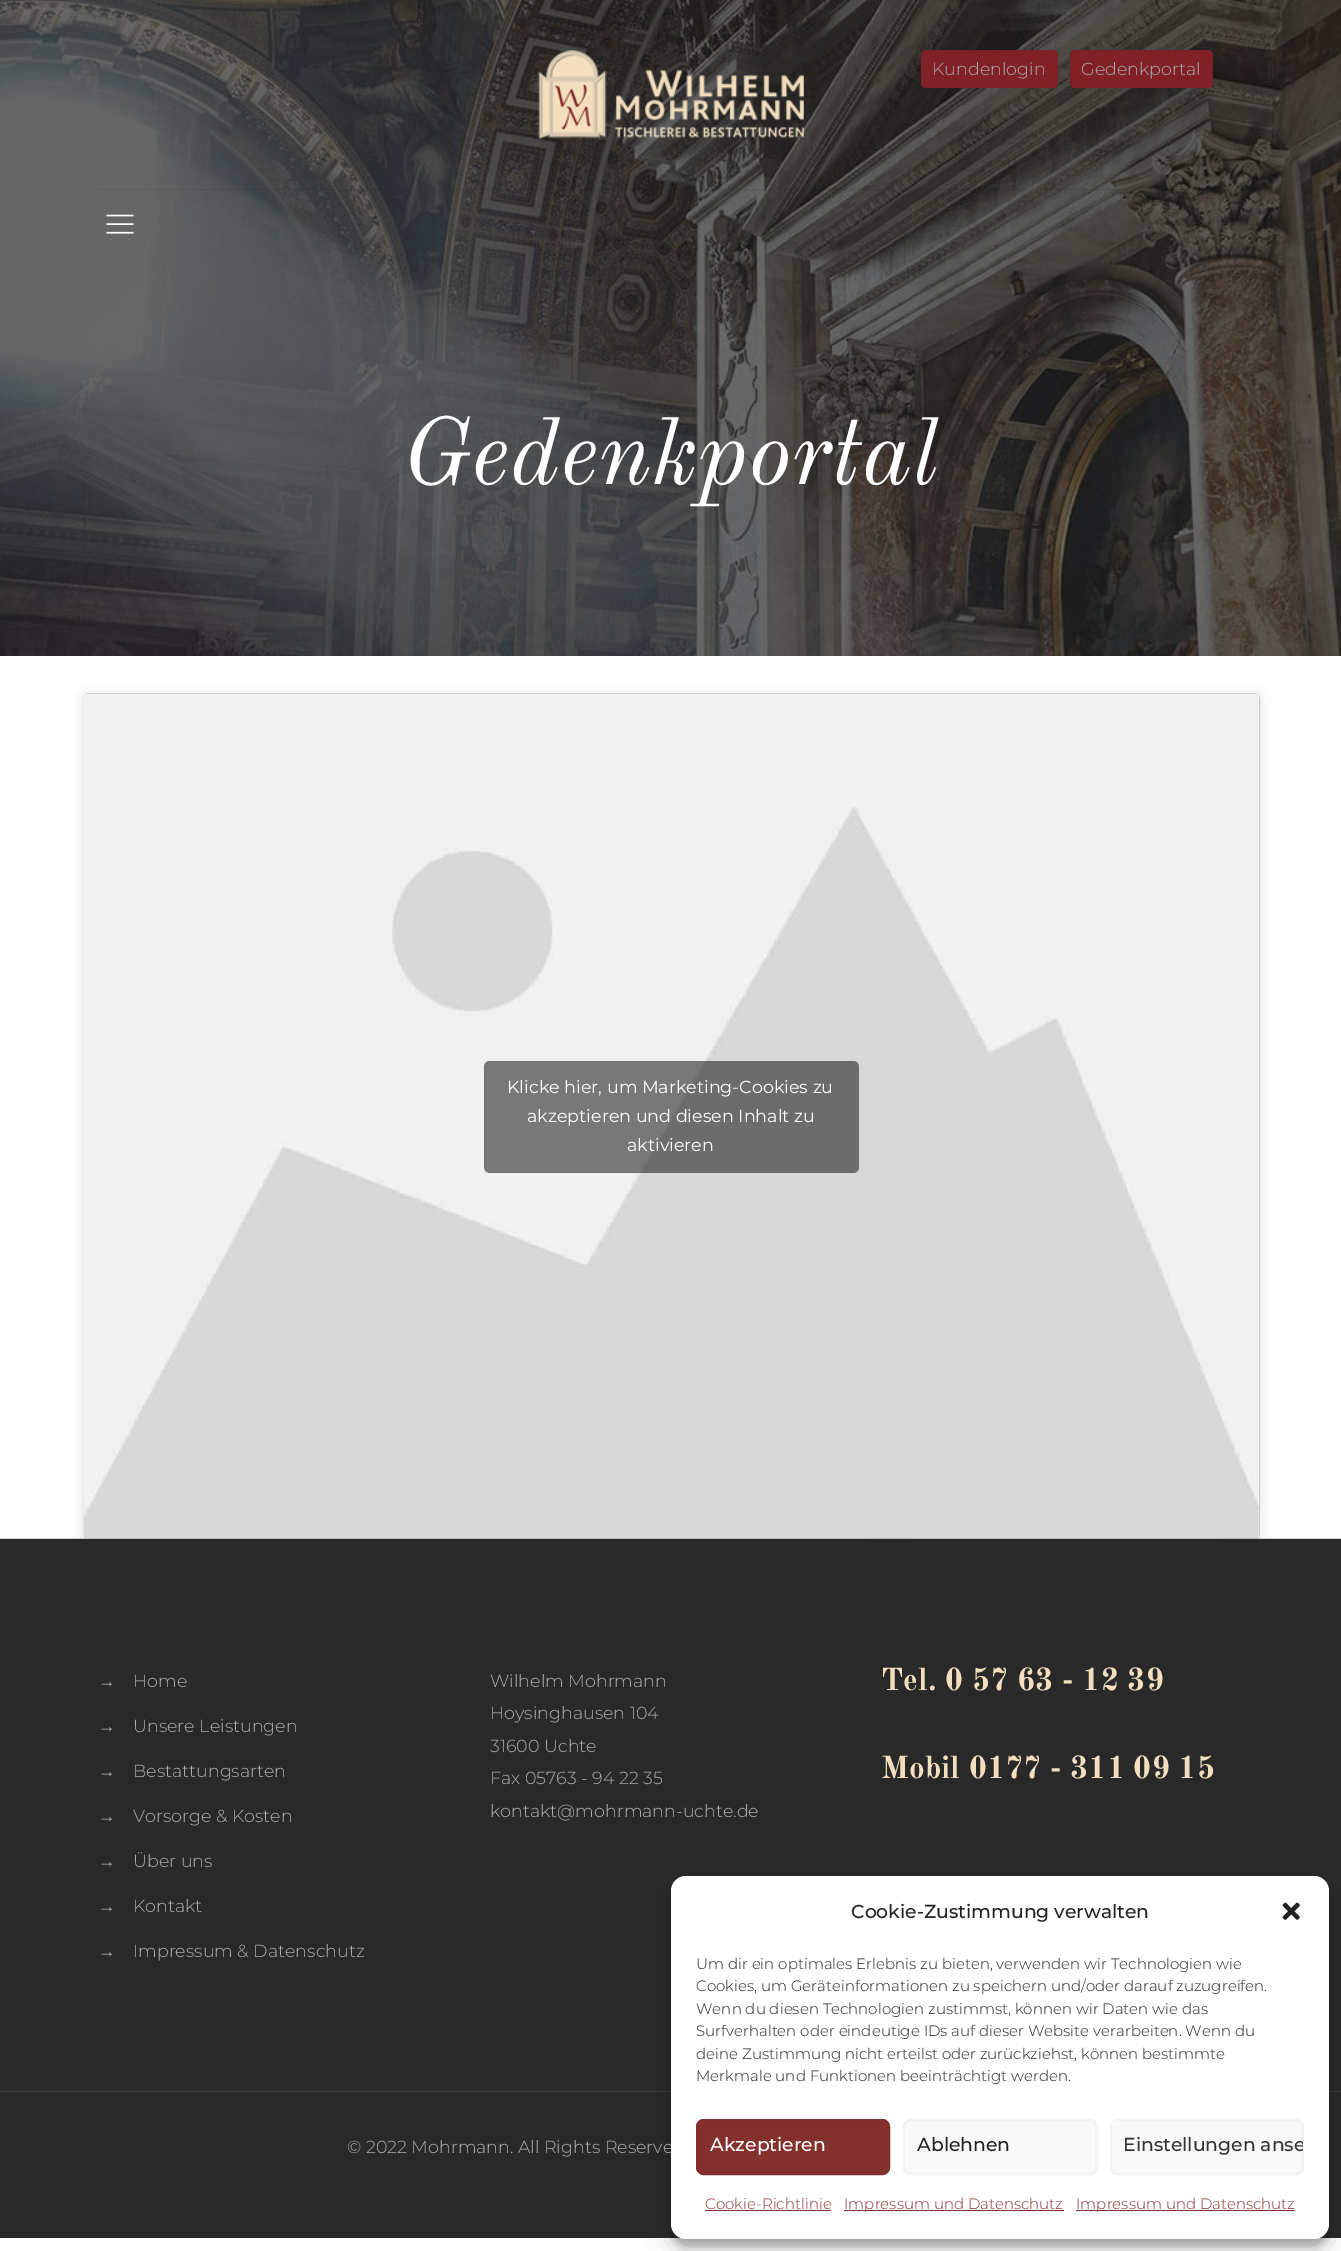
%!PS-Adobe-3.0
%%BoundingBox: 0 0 1341 2251
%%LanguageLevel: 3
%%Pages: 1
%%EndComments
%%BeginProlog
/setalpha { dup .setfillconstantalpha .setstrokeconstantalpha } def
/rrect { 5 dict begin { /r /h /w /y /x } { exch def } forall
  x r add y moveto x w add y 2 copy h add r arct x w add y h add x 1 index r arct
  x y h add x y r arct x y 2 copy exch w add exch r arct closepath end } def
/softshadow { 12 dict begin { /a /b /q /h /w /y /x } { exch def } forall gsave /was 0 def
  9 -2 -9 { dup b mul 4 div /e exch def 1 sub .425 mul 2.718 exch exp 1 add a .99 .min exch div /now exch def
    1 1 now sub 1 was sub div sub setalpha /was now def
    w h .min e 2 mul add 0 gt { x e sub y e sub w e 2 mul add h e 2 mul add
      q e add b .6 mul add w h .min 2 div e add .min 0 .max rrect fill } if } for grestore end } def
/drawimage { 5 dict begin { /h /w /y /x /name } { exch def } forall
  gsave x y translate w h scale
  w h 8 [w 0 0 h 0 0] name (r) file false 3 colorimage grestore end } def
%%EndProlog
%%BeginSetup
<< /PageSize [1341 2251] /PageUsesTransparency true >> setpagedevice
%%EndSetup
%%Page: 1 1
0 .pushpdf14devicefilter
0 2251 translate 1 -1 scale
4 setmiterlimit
1 setgray
0 0 1341 2251 rectfill
(images/1.raw) 0 0 1341 656 drawimage
0.08 setalpha
0 setgray
99 189 1145 1 rectfill
1 setalpha
(images/2.raw) 538 50 266 89 drawimage
0.506 0.129 0.153 setrgbcolor
921 50 137 38 5 rrect fill
0.03 setalpha
0 setgray
921.5 50.5 136 37 rectstroke
1 setalpha
0.506 0.129 0.153 setrgbcolor
1070 50 143 38 5 rrect fill
0.03 setalpha
0 setgray
1070.5 50.5 142 37 rectstroke
1 setalpha
(images/3.raw) 106 214 28 20 drawimage
84 695 1175 845 4 6 0.15 softshadow
84 694 1175 845 4 0.5 0.5 softshadow
1 setgray
84 694 1175 845 4 rrect fill
(images/4.raw) 83 694 1176 845 drawimage
0.5 setalpha
0 setgray
484 1061 375 112 6 rrect fill
0.03 setalpha
484.5 1061.5 374 111 rectstroke
1 setalpha
0.161 setgray
0 1539 1341 699 rectfill
(images/5.raw) 0 1538 1341 1 drawimage
0.243 setgray
0 2091 1341 1 rectfill
0 setgray
671 1884 658 362 15 4 0.23 softshadow
671 1889 658 362 15 12.5 0.19 softshadow
/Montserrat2-Thin [17.5 0 0 -17.5 0 0] selectfont
0.659 setgray
932 75 moveto (Kundenlogin) show
1081 75 moveto (Gedenkportal) show
/OldStandardTT-Italic [93.75 0 0 -93.75 0 0] selectfont
1 setgray
402 484 moveto (Gedenkportal) show
/Montserrat-Thin [17.5 0 0 -17.5 0 0] selectfont
507 1093 moveto (Klicke hier, um Marketing-Cookies zu) show
527 1122 moveto (akzeptieren und diesen Inhalt zu) show
627 1151 moveto (aktivieren) show
/LiberationSerif-Regular [17.5 0 0 -17.5 0 0] selectfont
0.682 setgray
98 1687 moveto (→) show
/Montserrat2-Thin [17.5 0 0 -17.5 0 0] selectfont
133 1687 moveto (Home) show
/LiberationSerif-Regular [17.5 0 0 -17.5 0 0] selectfont
98 1732 moveto (→) show
/Montserrat2-Thin [17.5 0 0 -17.5 0 0] selectfont
133 1732 moveto (Unsere Leistungen) show
/LiberationSerif-Regular [17.5 0 0 -17.5 0 0] selectfont
98 1777 moveto (→) show
/Montserrat2-Thin [17.5 0 0 -17.5 0 0] selectfont
133 1777 moveto (Bestattungsarten) show
/LiberationSerif-Regular [17.5 0 0 -17.5 0 0] selectfont
98 1822 moveto (→) show
/Montserrat2-Thin [17.5 0 0 -17.5 0 0] selectfont
133 1822 moveto (Vorsorge & Kosten) show
/LiberationSerif-Regular [17.5 0 0 -17.5 0 0] selectfont
98 1867 moveto (→) show
/Montserrat2-Thin [17.5 0 0 -17.5 0 0] selectfont
133 1867 moveto (Über uns) show
/LiberationSerif-Regular [17.5 0 0 -17.5 0 0] selectfont
98 1912 moveto (→) show
/Montserrat2-Thin [17.5 0 0 -17.5 0 0] selectfont
133 1912 moveto (Kontakt) show
/LiberationSerif-Regular [17.5 0 0 -17.5 0 0] selectfont
98 1957 moveto (→) show
/Montserrat2-Thin [17.5 0 0 -17.5 0 0] selectfont
133 1957 moveto (Impressum & Datenschutz) show
490 1687 moveto (Wilhelm Mohrmann) show
490 1719 moveto (Hoysinghausen 104) show
490 1752 moveto (31600 Uchte) show
490 1784 moveto (Fax 05763 - 94 22 35) show
490 1817 moveto (kontakt@mohrmann-uchte.de) show
/OldStandardTT-Bold [31.25 0 0 -31.25 0 0] selectfont
0.953 0.871 0.745 setrgbcolor
881 1690 moveto (Tel. 0 57 63 - 12 39) show
881 1778 moveto (Mobil 0177 - 311 09 15) show
/Montserrat2-Thin [17.5 0 0 -17.5 0 0] selectfont
0.682 setgray
347 2153 moveto (© 2022 Mohrmann. All Rights Reserve) show
1 setgray
671 1876 658 363 15 rrect fill
/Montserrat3-Thin [18.75 0 0 -18.75 0 0] selectfont
0.133 setgray
851 1918 moveto (Cookie-Zustimmung verwalten) show
(images/6.raw) 1282 1902 18 18 drawimage
/Montserrat2-Thin [15 0 0 -15 0 0] selectfont
696 1969 moveto (Um dir ein optimales Erlebnis zu bieten, verwenden wir Technologien wie) show
696 1991 moveto (Cookies, um Geräteinformationen zu speichern und/oder darauf zuzugreifen.) show
696 2014 moveto (Wenn du diesen Technologien zustimmst, können wir Daten wie das) show
696 2036 moveto (Surfverhalten oder eindeutige IDs auf dieser Website verarbeiten. Wenn du) show
696 2059 moveto (deine Zustimmung nicht erteilst oder zurückziehst, können bestimmte) show
696 2081 moveto (Merkmale und Funktionen beeinträchtigt werden.) show
0.518 0.188 0.176 setrgbcolor
696 2119 194 56 8 rrect fill
0.502 0.184 0.173 setrgbcolor
698.5 2120.5 190 53 5.5 rrect stroke
0.518 0.188 0.176 setrgbcolor
696.5 2119.5 193 55 7.5 rrect stroke
/Montserrat3-Thin [18.75 0 0 -18.75 0 0] selectfont
1 setgray
710 2151 moveto (Akzeptieren) show
0.976 setgray
903 2119 195 56 8 rrect fill
0.949 setgray
904.5 2120.5 191 53 5.5 rrect stroke
903.5 2119.5 194 55 7.5 rrect stroke
0.133 setgray
917 2151 moveto (Ablehnen) show
0.976 setgray
1110 2119 194 56 8 rrect fill
0.949 setgray
1111.5 2120.5 191 53 5.5 rrect stroke
1110.5 2119.5 193 55 7.5 rrect stroke
gsave
1111 2120 192 54 6 rrect clip newpath
0.2 setgray
1123 2151 moveto (Einstellungen anse) show
grestore
/Montserrat2-Thin [15 0 0 -15 0 0] selectfont
0.518 0.188 0.176 setrgbcolor
705 2209 moveto (Cookie-Richtlinie) show
705 2210 126 1 rectfill
844 2210 220 1 rectfill
844 2209 moveto (Impressum und Datenschutz) show
1076 2210 219 1 rectfill
1076 2209 moveto (Impressum und Datenschutz) show
.poppdf14devicefilter showpage
%%EOF
